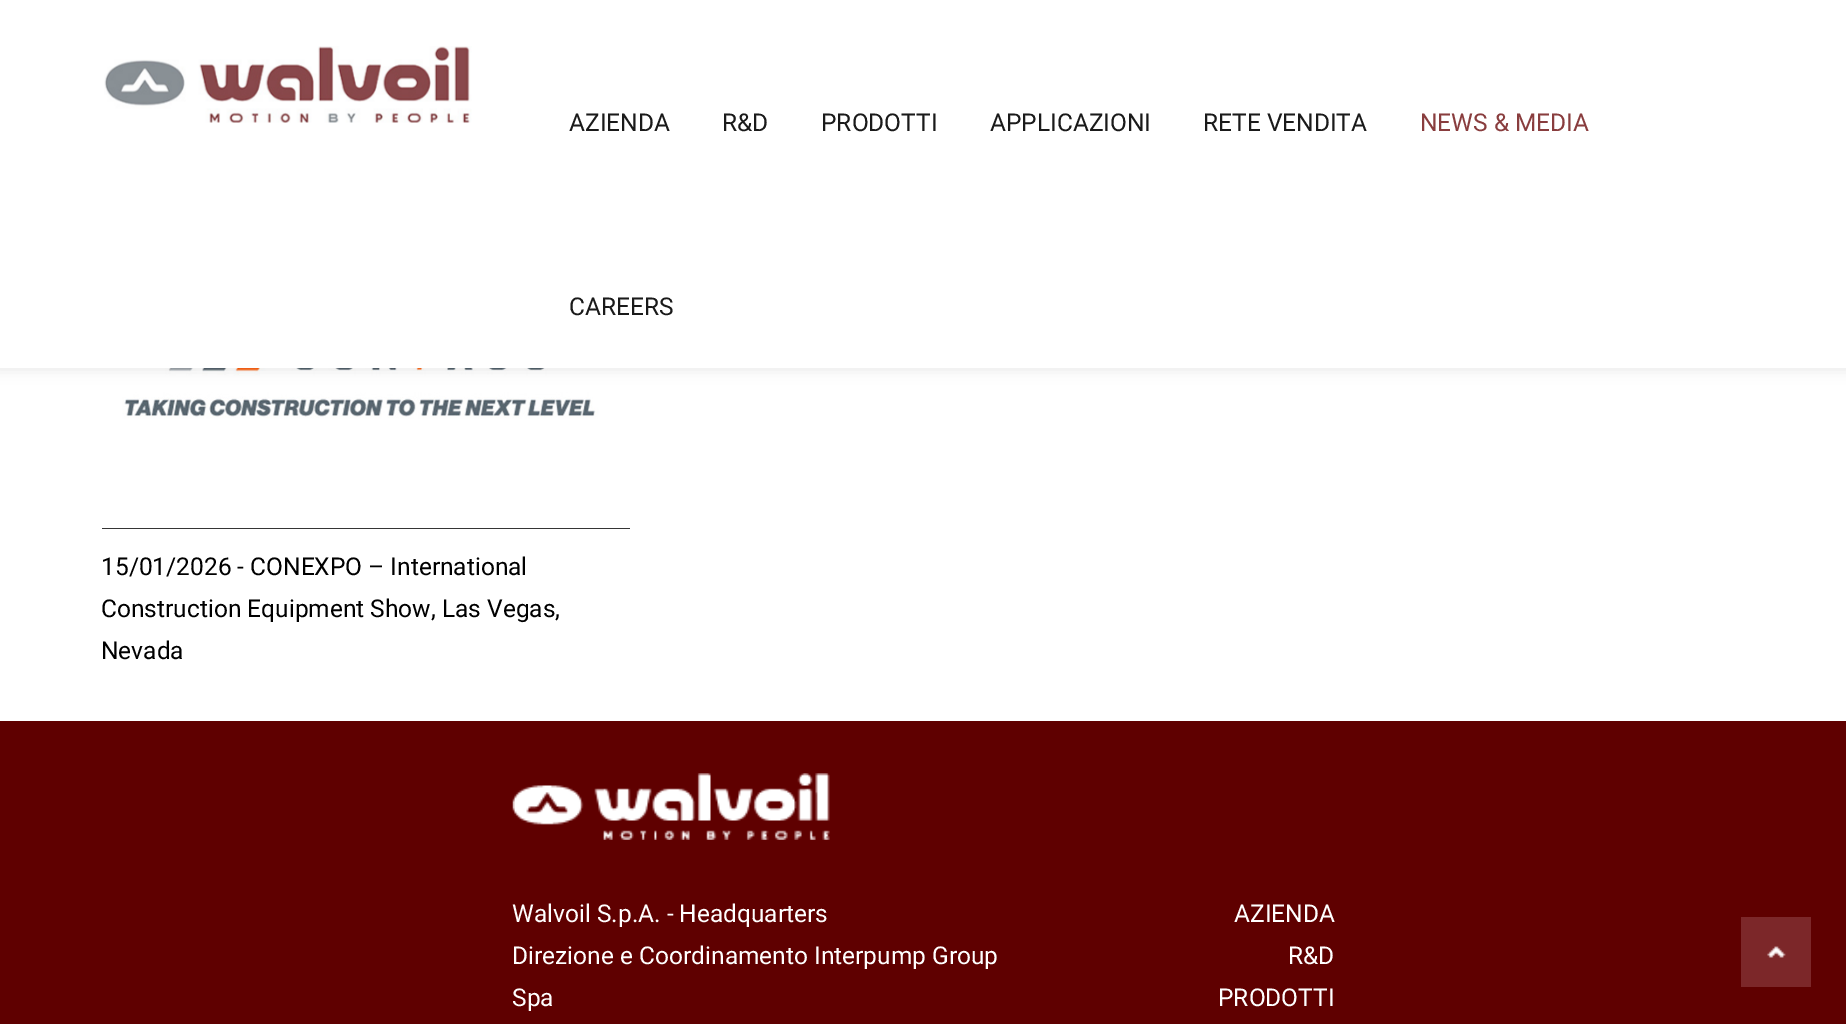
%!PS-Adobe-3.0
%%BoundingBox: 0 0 1846 1024
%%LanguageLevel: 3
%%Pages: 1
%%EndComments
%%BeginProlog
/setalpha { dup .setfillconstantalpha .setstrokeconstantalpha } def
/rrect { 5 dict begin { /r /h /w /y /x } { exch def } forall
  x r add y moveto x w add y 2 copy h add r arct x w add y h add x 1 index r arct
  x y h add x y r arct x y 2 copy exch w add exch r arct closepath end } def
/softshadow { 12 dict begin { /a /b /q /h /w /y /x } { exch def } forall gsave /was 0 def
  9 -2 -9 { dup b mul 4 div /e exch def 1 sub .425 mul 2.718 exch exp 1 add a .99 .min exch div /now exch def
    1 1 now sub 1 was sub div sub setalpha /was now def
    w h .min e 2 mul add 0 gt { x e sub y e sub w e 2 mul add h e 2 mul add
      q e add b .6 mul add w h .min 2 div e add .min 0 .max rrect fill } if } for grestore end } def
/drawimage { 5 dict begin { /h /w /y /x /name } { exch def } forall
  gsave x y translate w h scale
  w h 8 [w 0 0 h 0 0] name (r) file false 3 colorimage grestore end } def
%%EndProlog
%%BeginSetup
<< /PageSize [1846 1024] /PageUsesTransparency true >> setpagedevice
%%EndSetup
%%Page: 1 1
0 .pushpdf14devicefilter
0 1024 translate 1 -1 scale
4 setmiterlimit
1 setgray
0 0 1846 1024 rectfill
0.157 0.153 0.153 setrgbcolor
102 528 528 1 rectfill
(images/2.raw) 102 368 528 161 drawimage
0 setgray
-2 -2 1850 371 0 7 0.1 softshadow
1 setgray
0 0 1846 368 rectfill
(images/1.raw) 104 46 368 77 drawimage
0.373 0 0 setrgbcolor
0 721 1846 303 rectfill
(images/3.raw) 512 773 318 67 drawimage
0.486 0.153 0.161 setrgbcolor
1741 917 70 70 rectfill
(images/4.raw) 1767 946 19 12 drawimage
/Roboto-Regular [24.5 0 0 -24.5 0 0] selectfont
0.102 setgray
569 131 moveto (AZIENDA) show
722 131 moveto (R&D) show
821 131 moveto (PRODOTTI) show
990 131 moveto (APPLICAZIONI) show
1203 131 moveto (RETE VENDITA) show
0.537 0.239 0.243 setrgbcolor
1420 131 moveto (NEWS & MEDIA) show
0.102 setgray
569 315 moveto (CAREERS) show
0 setgray
101 575 moveto (15/01/2026 - CONEXPO – International) show
101 617 moveto (Construction Equipment Show, Las Vegas,) show
101 659 moveto (Nevada) show
1 setgray
512 922 moveto (Walvoil S.p.A. - Headquarters) show
512 964 moveto (Direzione e Coordinamento Interpump Group) show
512 1006 moveto (Spa) show
1234 922 moveto (AZIENDA) show
1288 964 moveto (R&D) show
1218 1006 moveto (PRODOTTI) show
.poppdf14devicefilter showpage
%%EOF
